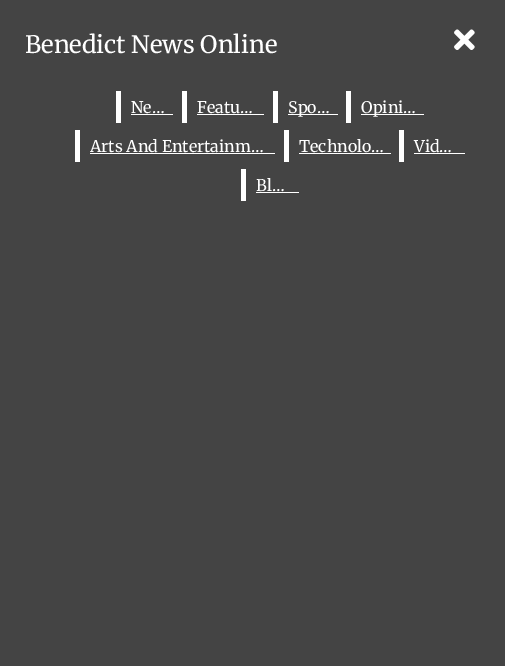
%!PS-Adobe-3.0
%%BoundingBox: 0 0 505 666
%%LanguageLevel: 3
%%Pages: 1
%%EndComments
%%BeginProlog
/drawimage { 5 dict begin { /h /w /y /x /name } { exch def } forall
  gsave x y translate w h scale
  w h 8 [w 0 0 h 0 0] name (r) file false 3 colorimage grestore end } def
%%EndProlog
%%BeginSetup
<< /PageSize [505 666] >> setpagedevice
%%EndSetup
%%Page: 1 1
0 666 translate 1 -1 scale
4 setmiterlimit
0.267 setgray
0 0 505 666 rectfill
(images/1.raw) 454 29 21 21 drawimage
1 setgray
116 91 5 32 rectfill
131 114 42 1 rectfill
182 91 5 32 rectfill
197 114 67 1 rectfill
273 91 5 32 rectfill
288 114 50 1 rectfill
346 91 5 32 rectfill
361 114 63 1 rectfill
75 130 5 32 rectfill
90 153 185 1 rectfill
284 130 5 32 rectfill
299 153 92 1 rectfill
399 130 5 32 rectfill
414 153 51 1 rectfill
241 169 5 32 rectfill
256 192 43 1 rectfill
/Merriweather-Regular [24 0 0 -24 0 0] selectfont
25 53 moveto (Benedict News Online) show
/Merriweather-Regular [16 0 0 -16 0 0] selectfont
131 113 moveto (Ne…) show
197 113 moveto (Featu…) show
288 113 moveto (Spo…) show
361 113 moveto (Opini…) show
90 152 moveto (Arts And Entertainm…) show
299 152 moveto (Technolo…) show
414 152 moveto (Vid…) show
256 191 moveto (Bl…) show
showpage
%%EOF
